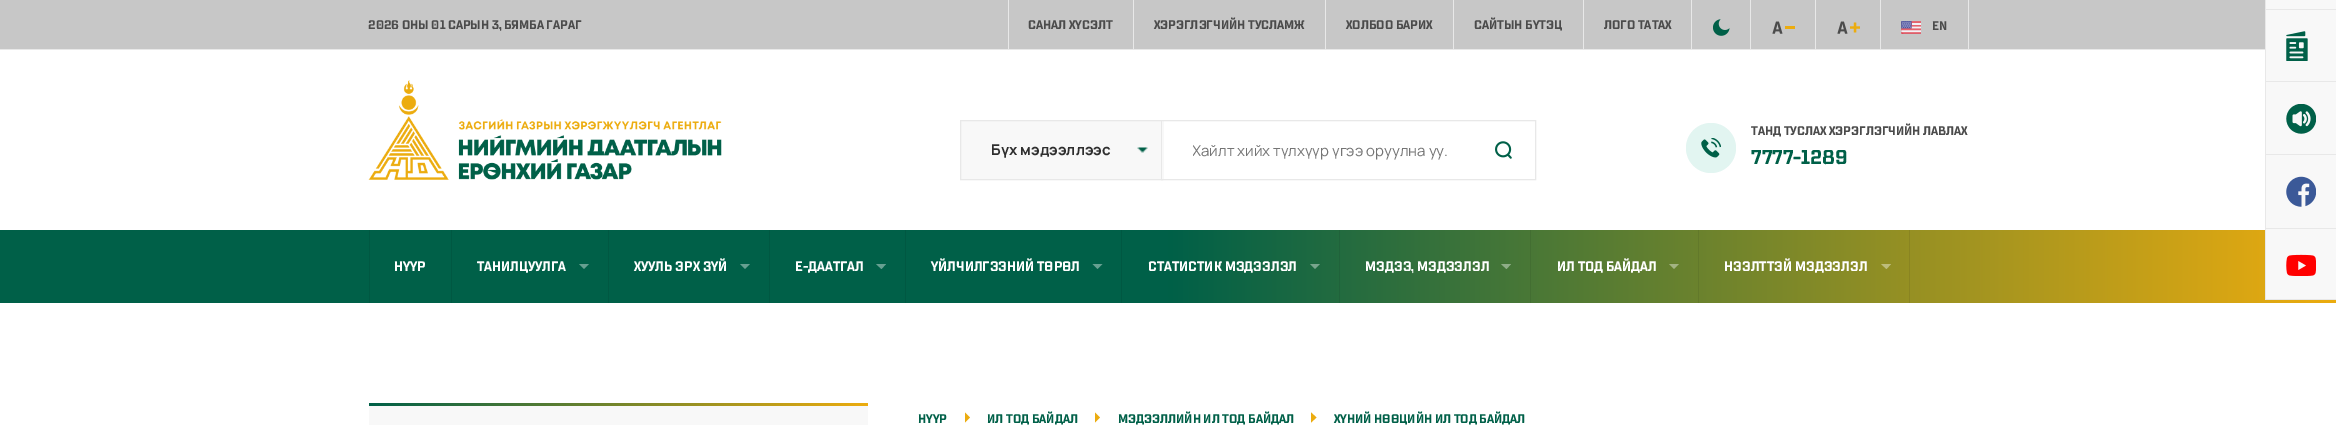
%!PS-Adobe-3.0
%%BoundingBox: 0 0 2336 425
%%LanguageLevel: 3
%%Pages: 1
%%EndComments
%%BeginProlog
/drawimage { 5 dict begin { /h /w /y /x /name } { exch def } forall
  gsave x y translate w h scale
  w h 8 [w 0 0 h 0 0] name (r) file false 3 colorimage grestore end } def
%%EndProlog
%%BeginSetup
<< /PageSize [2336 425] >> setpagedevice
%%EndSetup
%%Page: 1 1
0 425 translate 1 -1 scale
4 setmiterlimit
1 setgray
0 0 2336 425 rectfill
0.78 setgray
0 0 2265 49 rectfill
0.91 setgray
0 49 2265 1 rectfill
1008 0 1 49 rectfill
1133 0 1 49 rectfill
1325 0 1 49 rectfill
1453 0 1 49 rectfill
1583 0 1 49 rectfill
1691 0 1 49 rectfill
(images/1.raw) 1713 19 17 17 drawimage
1750 0 1 49 rectfill
(images/2.raw) 1772 21 11 13 drawimage
0.925 0.675 0.059 setrgbcolor
1785 26 10 3 rectfill
0.91 setgray
1815 0 1 49 rectfill
(images/2.raw) 1837 21 11 13 drawimage
(images/3.raw) 1850 22 10 11 drawimage
1968 0 1 49 rectfill
1880 0 1 49 rectfill
(images/4.raw) 1901 21 20 13 drawimage
0.973 setgray
2266 0 70 9 rectfill
0.91 setgray
2265 0 1 9 rectfill
0.973 setgray
2266 10 70 71 rectfill
0.91 setgray
2265 9 71 1 rectfill
2265 9 1 72 rectfill
(images/5.raw) 2286 31 22 30 drawimage
0.973 setgray
2266 82 70 72 rectfill
0.91 setgray
2265 81 71 1 rectfill
2265 81 1 73 rectfill
(images/6.raw) 2286 104 30 30 drawimage
0.973 setgray
2266 155 70 73 rectfill
0.91 setgray
2265 154 71 1 rectfill
2265 154 1 74 rectfill
(images/7.raw) 2286 176 30 31 drawimage
gsave newpath 0 230 moveto 2336 230 lineto 2336 303 lineto 0 303 lineto closepath clip newpath
<< /ShadingType 2 /ColorSpace /DeviceRGB /Coords [0 266 2336 266] /Extend [true true] /Function << /FunctionType 3 /Domain [0 1] /Functions [<< /FunctionType 2 /Domain [0 1] /C0 [0 0.376 0.282] /C1 [0 0.376 0.282] /N 1 >> << /FunctionType 2 /Domain [0 1] /C0 [0 0.376 0.282] /C1 [0.925 0.675 0.059] /N 1 >>] /Bounds [0.5] /Encode [0 1 0 1] >> >> shfill grestore
0.973 setgray
2266 229 70 70 rectfill
0.91 setgray
2265 228 71 1 rectfill
2265 299 71 1 rectfill
2265 228 1 72 rectfill
(images/8.raw) 2286 254 30 22 drawimage
(images/9.raw) 368 80 354 100 drawimage
0.973 setgray
961 121 200 58 rectfill
(images/10.raw) 1137 147 11 6 drawimage
0.91 setgray
960.5 120.5 202 59 rectstroke
1 setgray
1162 121 1 58 rectfill
0.91 setgray
1161.5 120.5 374 59 rectstroke
(images/11.raw) 1495 141 17 18 drawimage
0.886 0.961 0.945 setrgbcolor
newpath 1711 148 25 0 360 arc closepath fill
(images/12.raw) 1701 138 20 20 drawimage
0 0.345 0.259 setrgbcolor
369 230 1 73 rectfill
451 230 1 73 rectfill
0.4 0.627 0.569 setrgbcolor
newpath 579 264 moveto 584 269 lineto 589 264 lineto closepath fill
0 0.345 0.259 setrgbcolor
608 230 1 73 rectfill
0.4 0.627 0.569 setrgbcolor
newpath 740 264 moveto 745 269 lineto 750 264 lineto closepath fill
0 0.345 0.259 setrgbcolor
769 230 1 73 rectfill
0.4 0.627 0.569 setrgbcolor
newpath 876 264 moveto 881.5 269 lineto 886 264 lineto closepath fill
0 0.345 0.259 setrgbcolor
905 230 1 73 rectfill
0.4 0.627 0.569 setrgbcolor
newpath 1092.5 264 moveto 1097.5 269 lineto 1102.5 264 lineto closepath fill
0 0.345 0.259 setrgbcolor
1121 230 1 73 rectfill
0.471 0.647 0.553 setrgbcolor
newpath 1310 264 moveto 1315 269 lineto 1320 264 lineto closepath fill
0.125 0.384 0.231 setrgbcolor
1339 230 1 73 rectfill
0.561 0.678 0.529 setrgbcolor
newpath 1501 264 moveto 1506.5 269 lineto 1511 264 lineto closepath fill
0.263 0.431 0.196 setrgbcolor
1530 230 1 73 rectfill
0.639 0.702 0.51 setrgbcolor
newpath 1669 264 moveto 1674 269 lineto 1679 264 lineto closepath fill
0.541 0.518 0.129 setrgbcolor
1909 230 1 73 rectfill
0.384 0.475 0.165 setrgbcolor
1698 230 1 73 rectfill
0.741 0.737 0.486 setrgbcolor
newpath 1881 264 moveto 1886.5 269 lineto 1891 264 lineto closepath fill
0.973 setgray
369 406 499 19 rectfill
gsave newpath 369 403 moveto 868 403 lineto 868 406 lineto 369 406 lineto closepath clip newpath
<< /ShadingType 2 /ColorSpace /DeviceRGB /Coords [369 404 868 404] /Extend [true true] /Function << /FunctionType 2 /Domain [0 1] /C0 [0 0.376 0.282] /C1 [0.925 0.675 0.059] /N 1 >> >> shfill grestore
0.925 0.675 0.059 setrgbcolor
newpath 965 422.5 moveto 970 417.5 lineto 965 412.5 lineto closepath fill
newpath 1095 422.5 moveto 1100 417.5 lineto 1095 412.5 lineto closepath fill
newpath 1311 422.5 moveto 1316.5 417.5 lineto 1311 412.5 lineto closepath fill
/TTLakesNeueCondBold-Bold [12.5 0 0 -12.5 0 0] selectfont
0.294 setgray
368 29 moveto (2026 ОНЫ 01 САРЫН 3, БЯМБА ГАРАГ) show
1028 29 moveto (САНАЛ ХҮСЭЛТ) show
1154 29 moveto (ХЭРЭГЛЭГЧИЙН ТУСЛАМЖ) show
1346 29 moveto (ХОЛБОО БАРИХ) show
1474 29 moveto (САЙТЫН БҮТЭЦ) show
1604 29 moveto (ЛОГО ТАТАХ) show
1932 30 moveto (EN) show
/Manrope-Bold [15 0 0 -15 0 0] selectfont
0.184 setgray
991 155 moveto (Бүх мэдээллээс) show
gsave
1193 140 302 21 rectclip
/Manrope-Regular [15 0 0 -15 0 0] selectfont
0.459 setgray
1192 156 moveto (Хайлт хийх түлхүүр үгээ оруулна уу.) show
grestore
/TTLakesNeueCondBold-Bold [12.5 0 0 -12.5 0 0] selectfont
0.294 setgray
1751 135 moveto (ТАНД ТУСЛАХ ХЭРЭГЛЭГЧИЙН ЛАВЛАХ) show
/TTLakesNeueCondBold-Bold [20 0 0 -20 0 0] selectfont
0 0.376 0.282 setrgbcolor
1751 164 moveto (7777-1289) show
/TTLakesNeueCondBold-Bold [13.75 0 0 -13.75 0 0] selectfont
1 setgray
394 271 moveto (НҮҮР) show
477 271 moveto (ТАНИЛЦУУЛГА) show
634 271 moveto (ХУУЛЬ ЭРХ ЗҮЙ) show
795 271 moveto (Е-ДААТГАЛ) show
931 271 moveto (ҮЙЛЧИЛГЭЭНИЙ ТӨРӨЛ) show
1148 271 moveto (СТАТИСТИК МЭДЭЭЛЭЛ) show
1365 271 moveto (МЭДЭЭ, МЭДЭЭЛЭЛ) show
1557 271 moveto (ИЛ ТОД БАЙДАЛ) show
1724 271 moveto (НЭЭЛТТЭЙ МЭДЭЭЛЭЛ) show
/TTLakesNeueCondBold-Bold [12.5 0 0 -12.5 0 0] selectfont
0 0.376 0.282 setrgbcolor
918 423 moveto (НҮҮР) show
987 423 moveto (ИЛ ТОД БАЙДАЛ) show
1118 423 moveto (МЭДЭЭЛЛИЙН ИЛ ТОД БАЙДАЛ) show
1334 423 moveto (ХҮНИЙ НӨӨЦИЙН ИЛ ТОД БАЙДАЛ) show
showpage
%%EOF
